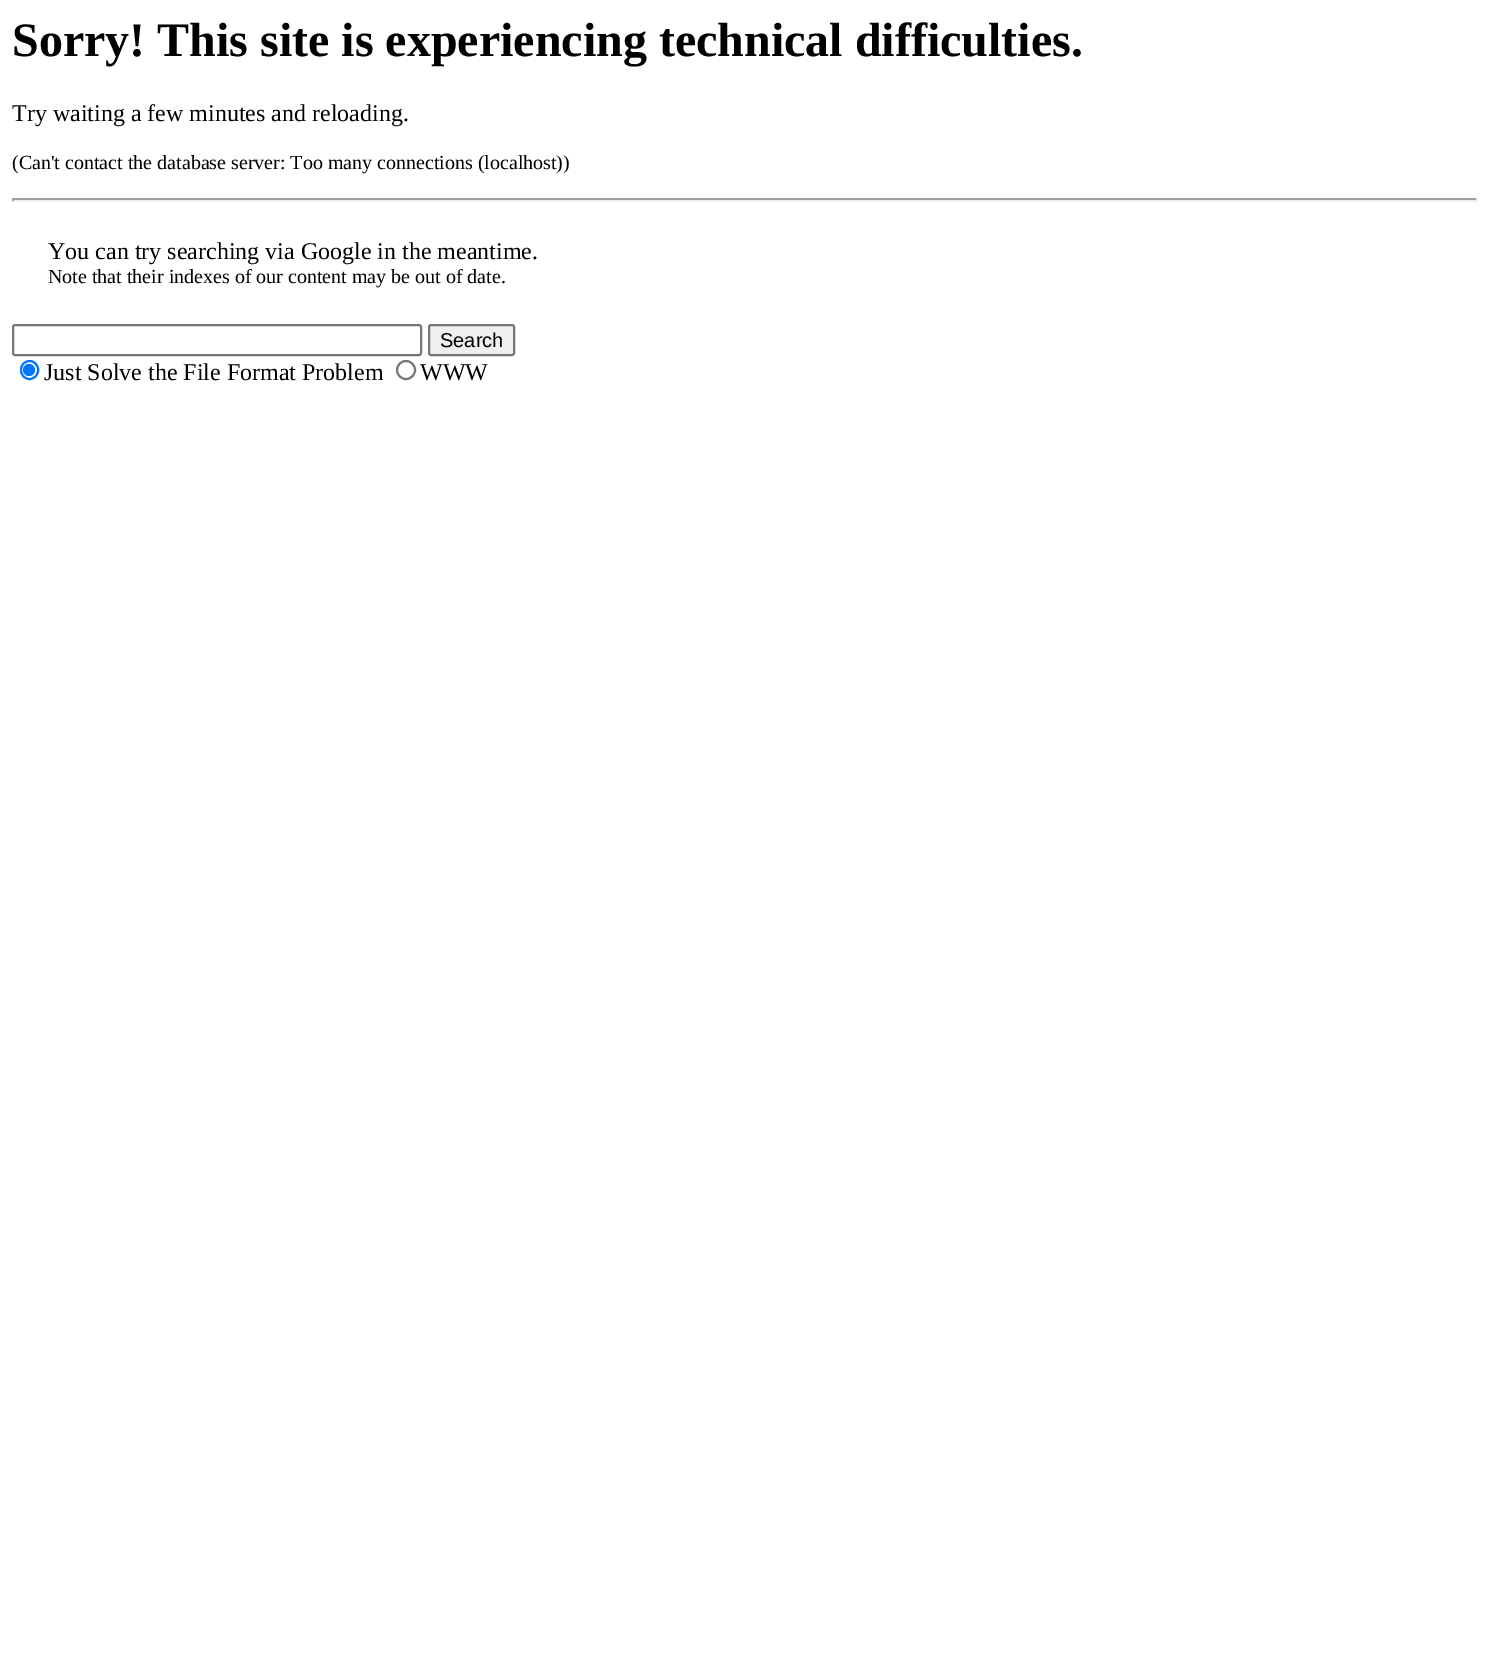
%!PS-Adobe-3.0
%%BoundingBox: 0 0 1489 1662
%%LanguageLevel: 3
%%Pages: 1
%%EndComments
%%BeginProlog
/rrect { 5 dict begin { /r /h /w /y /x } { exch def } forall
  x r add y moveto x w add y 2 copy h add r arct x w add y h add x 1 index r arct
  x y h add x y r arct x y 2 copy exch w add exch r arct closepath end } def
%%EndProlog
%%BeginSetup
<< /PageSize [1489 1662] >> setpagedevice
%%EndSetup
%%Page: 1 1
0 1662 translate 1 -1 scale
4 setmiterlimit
1 setgray
0 0 1489 1662 rectfill
0.624 setgray
12 198 1466 2 rectfill
0.933 setgray
1476 198 2 3 rectfill
12 200 1466 2 rectfill
0.624 setgray
12 198 2 3 rectfill
0.463 setgray
2 setlinewidth
13 325 408 30 2 rrect stroke
0.937 setgray
429 325 85 30 2 rrect gsave fill grestore
0.463 setgray
stroke
0 0.459 1 setrgbcolor
21 361 17 18 8.5 rrect stroke
newpath 29 370 6 0 360 arc closepath fill
0.463 setgray
newpath 406 370 9 0 360 arc closepath stroke
/LiberationSerif-Bold [48 0 0 -48 0 0] selectfont
0 setgray
12 56 moveto (Sorry! This site is experiencing technical difficulties.) show
/LiberationSerif-Regular [24 0 0 -24 0 0] selectfont
12 121 moveto (Try waiting a few minutes and reloading.) show
/LiberationSerif-Regular [20 0 0 -20 0 0] selectfont
12 169 moveto (\(Can't contact the database server: Too many connections \(localhost\)\)) show
/LiberationSerif-Regular [24 0 0 -24 0 0] selectfont
48 259 moveto (You can try searching via Google in the meantime.) show
/LiberationSerif-Regular [20 0 0 -20 0 0] selectfont
48 283 moveto (Note that their indexes of our content may be out of date.) show
/LiberationSans-Regular [20 0 0 -20 0 0] selectfont
440 347 moveto (Search) show
/LiberationSerif-Regular [24 0 0 -24 0 0] selectfont
44 380 moveto (Just Solve the File Format Problem) show
420 380 moveto (WWW) show
showpage
%%EOF
